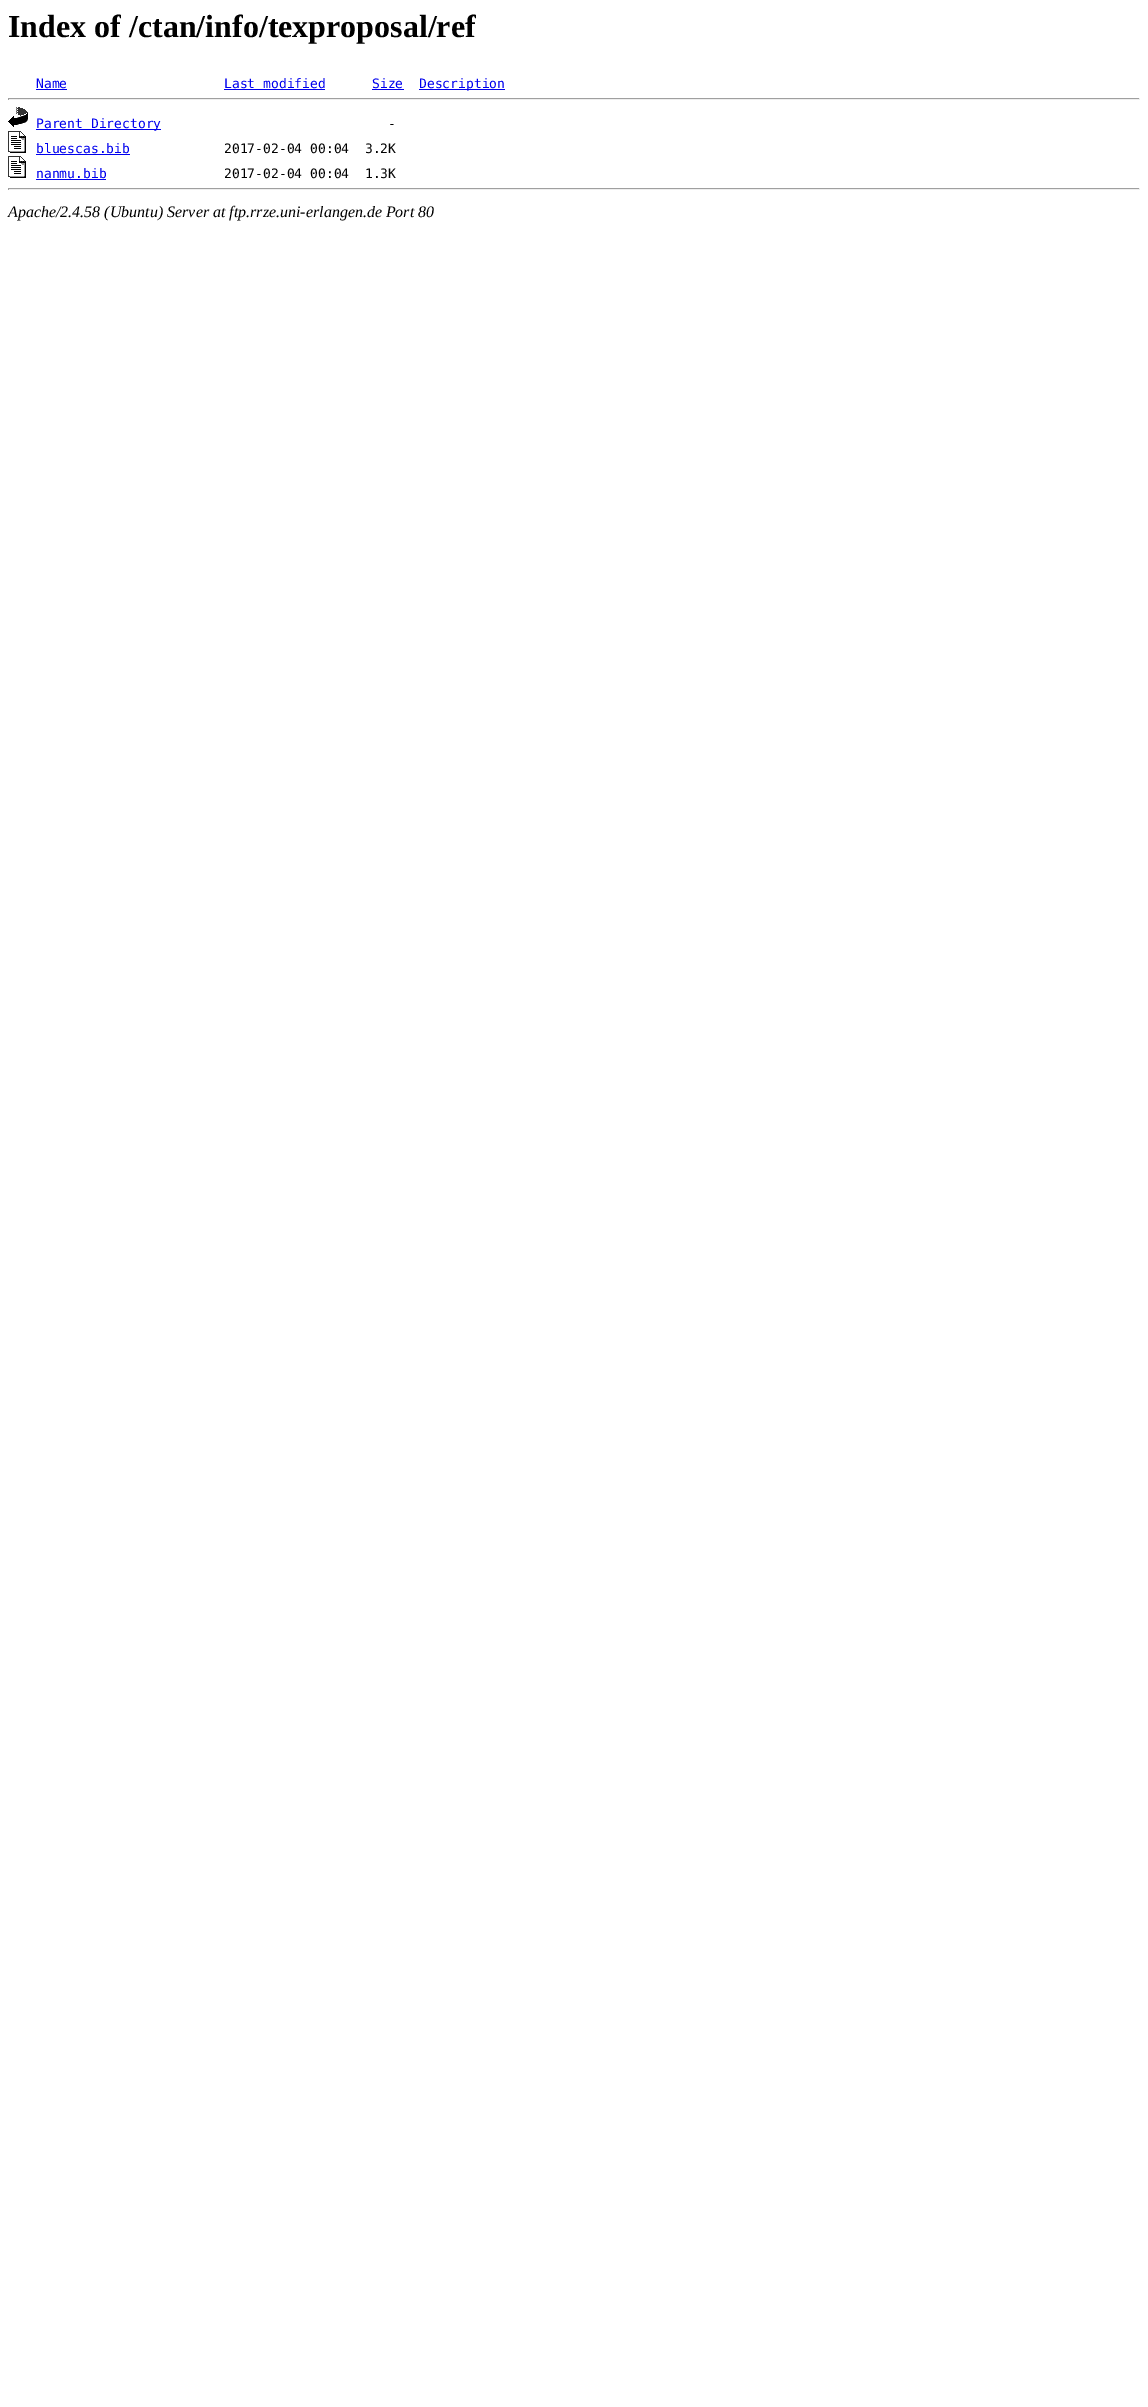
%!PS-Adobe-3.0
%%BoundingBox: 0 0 1148 2407
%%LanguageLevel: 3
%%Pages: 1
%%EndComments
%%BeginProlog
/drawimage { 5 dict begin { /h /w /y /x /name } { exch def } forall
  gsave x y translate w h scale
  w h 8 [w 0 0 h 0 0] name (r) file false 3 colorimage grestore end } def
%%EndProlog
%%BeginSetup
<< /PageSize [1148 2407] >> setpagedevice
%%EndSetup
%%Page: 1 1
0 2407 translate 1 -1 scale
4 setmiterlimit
1 setgray
0 0 1148 2407 rectfill
0 0 0.933 setrgbcolor
36 89 31 1 rectfill
224 89 101 1 rectfill
372 89 32 1 rectfill
419 89 86 1 rectfill
0.624 setgray
8 98 1132 1 rectfill
0.933 setgray
1139 98 1 2 rectfill
8 99 1132 1 rectfill
0.624 setgray
8 98 1 2 rectfill
(images/1.raw) 8 107 20 20 drawimage
0 0 0.933 setrgbcolor
36 129 125 1 rectfill
(images/2.raw) 8 131 18 22 drawimage
36 154 94 1 rectfill
(images/2.raw) 8 156 18 22 drawimage
36 179 70 1 rectfill
0.624 setgray
8 188 1132 1 rectfill
0.933 setgray
1139 188 1 2 rectfill
8 189 1132 1 rectfill
0.624 setgray
8 188 1 2 rectfill
/LiberationSerif-Bold [32 0 0 -32 0 0] selectfont
0 setgray
8 37 moveto (Index of /ctan/info/texproposal/ref) show
/DejaVuSansMono-Regular [13 0 0 -13 0 0] selectfont
0 0 0.933 setrgbcolor
36 88 moveto (Name) show
224 88 moveto (Last modified) show
372 88 moveto (Size) show
419 88 moveto (Description) show
36 128 moveto (Parent Directory) show
0 setgray
388 128 moveto (-) show
0 0 0.933 setrgbcolor
36 153 moveto (bluescas.bib) show
0 setgray
224 153 moveto (2017-02-04 00:04  3.2K) show
0 0 0.933 setrgbcolor
36 178 moveto (nanmu.bib) show
0 setgray
224 178 moveto (2017-02-04 00:04  1.3K) show
/LiberationSerif-Italic [16 0 0 -16 0 0] selectfont
8 217 moveto (Apache/2.4.58 \(Ubuntu\) Server at ftp.rrze.uni-erlangen.de Port 80) show
showpage
%%EOF
